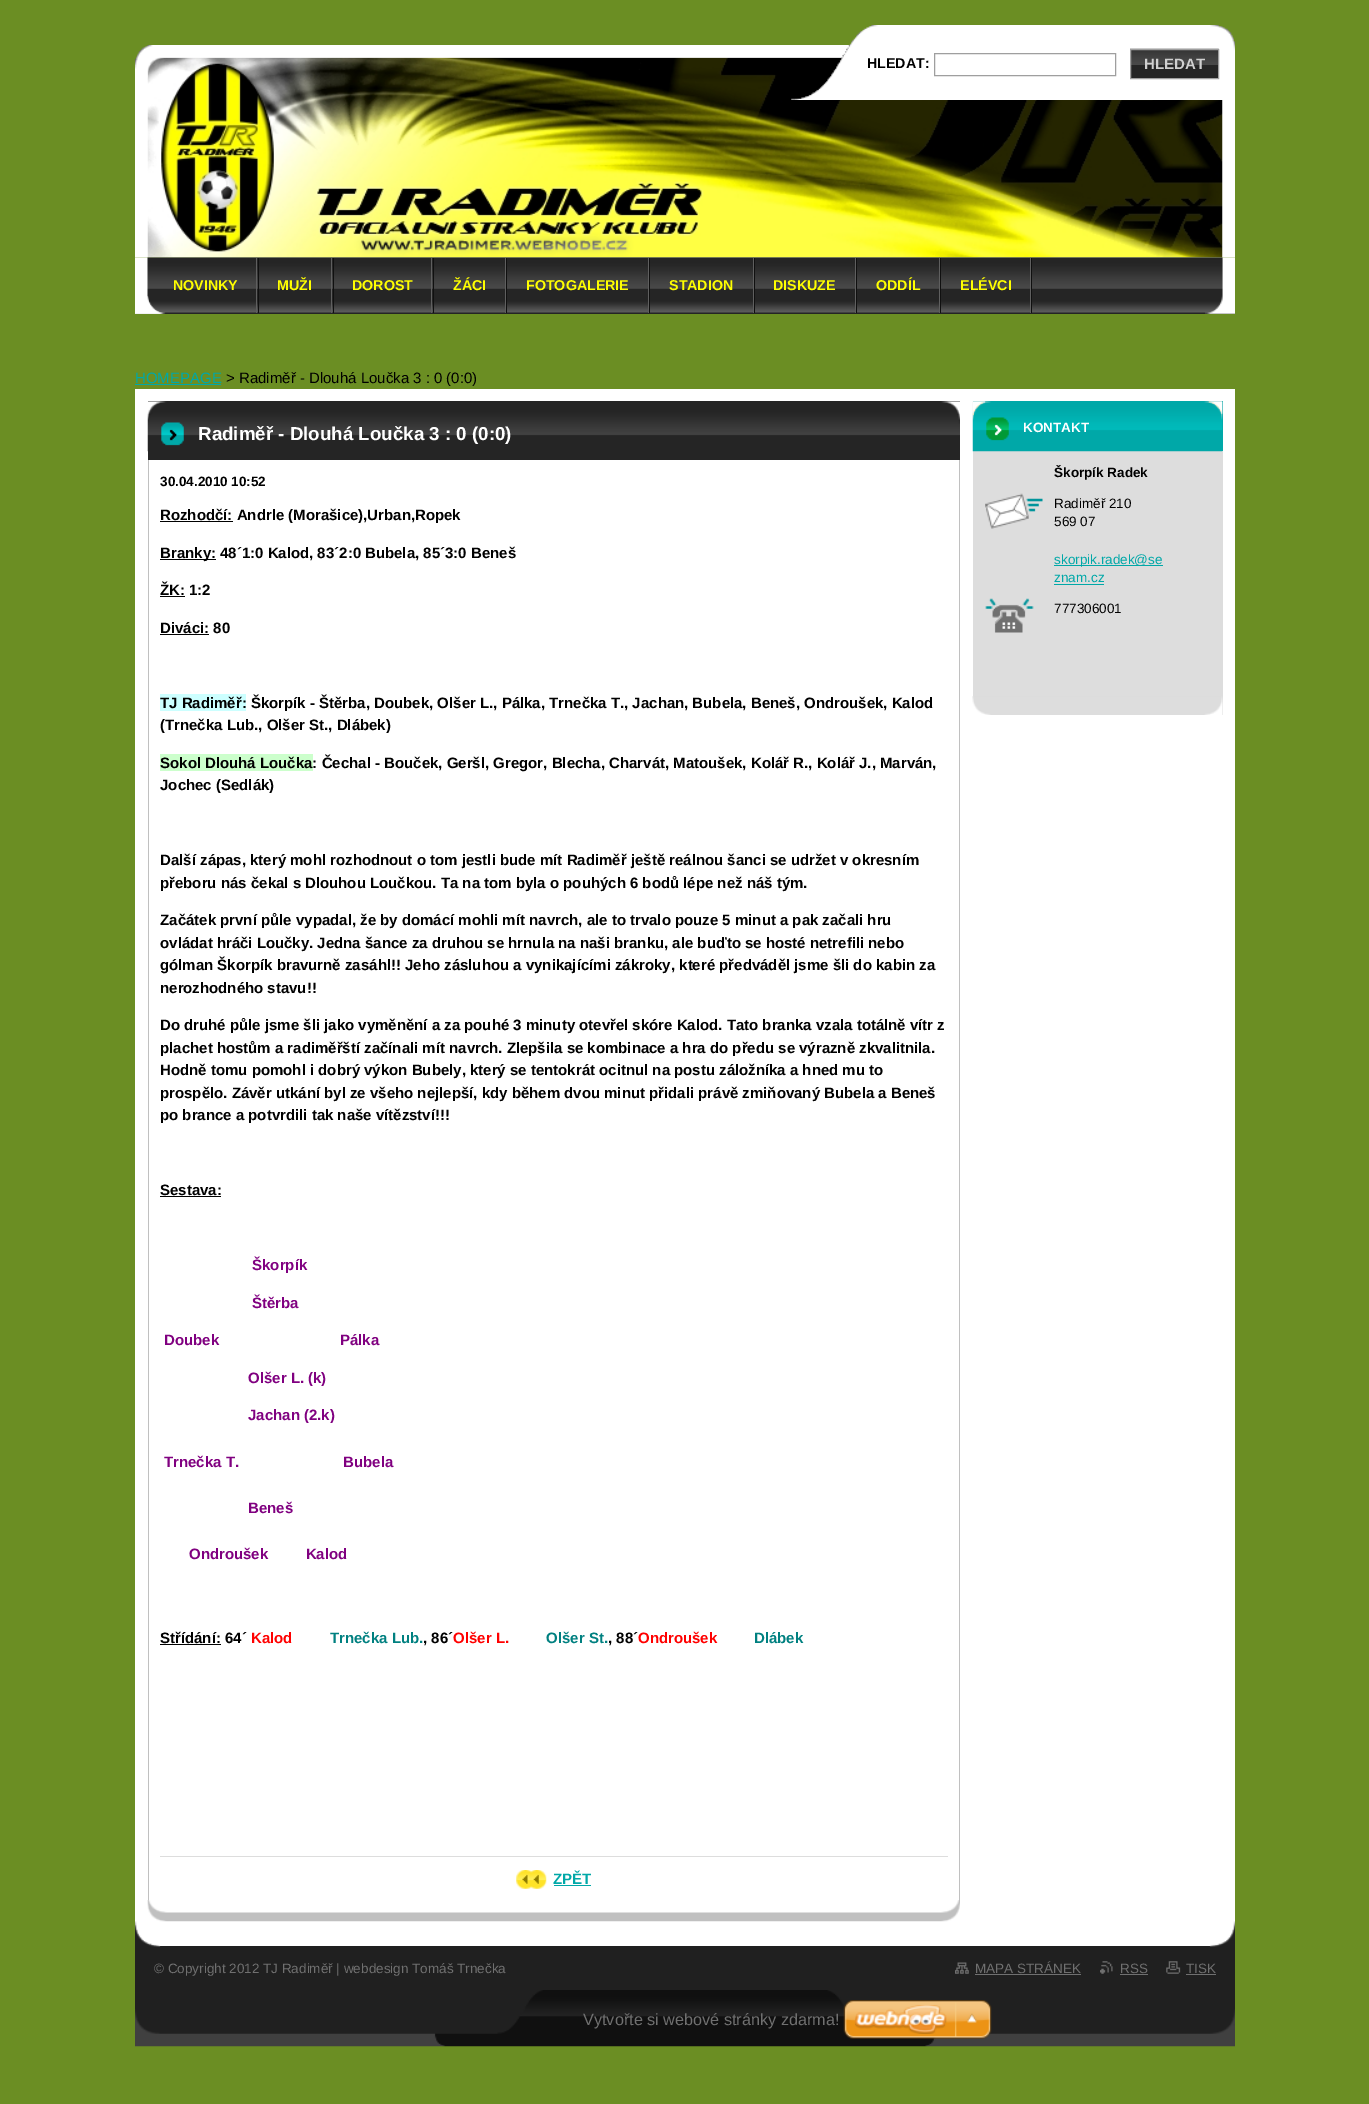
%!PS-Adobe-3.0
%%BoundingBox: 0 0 1369 2104
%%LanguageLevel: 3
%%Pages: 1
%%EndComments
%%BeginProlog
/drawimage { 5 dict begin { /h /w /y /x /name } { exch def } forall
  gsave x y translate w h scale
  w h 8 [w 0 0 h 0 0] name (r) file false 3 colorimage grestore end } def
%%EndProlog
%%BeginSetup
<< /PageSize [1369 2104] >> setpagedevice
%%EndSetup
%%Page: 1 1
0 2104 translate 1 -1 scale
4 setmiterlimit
0.42 0.557 0.137 setrgbcolor
0 0 1369 2104 rectfill
(images/3.raw) 135 46 1100 212 drawimage
(images/5.raw) 147 57 1076 201 drawimage
(images/4.raw) 135 45 716 33 drawimage
(images/1.raw) 791 25 444 75 drawimage
0.624 setgray
934.5 53.5 181 22 rectstroke
0.145 setgray
1131 65 87 13 rectfill
(images/2.raw) 1130 48 89 17 drawimage
0.624 setgray
1130.5 49.5 88 29 rectstroke
(images/6.raw) 135 257 1100 57 drawimage
0.063 setgray
258 258 1 55 rectfill
0.373 setgray
256 258 1 55 rectfill
0.063 setgray
333 258 1 55 rectfill
0.373 setgray
331 258 1 55 rectfill
0.063 setgray
433 258 1 55 rectfill
0.373 setgray
431 258 1 55 rectfill
0.063 setgray
506 258 1 55 rectfill
0.373 setgray
505 258 1 55 rectfill
0.063 setgray
649 258 1 55 rectfill
0.373 setgray
648 258 1 55 rectfill
0.063 setgray
754 258 1 55 rectfill
0.373 setgray
753 258 1 55 rectfill
0.063 setgray
856 258 1 55 rectfill
0.373 setgray
855 258 1 55 rectfill
0.063 setgray
940 258 1 55 rectfill
0.373 setgray
939 258 1 55 rectfill
0.063 setgray
1031 258 1 55 rectfill
0.373 setgray
1030 258 1 55 rectfill
(images/7.raw) 135 296 29 18 drawimage
0 0.659 0.659 setrgbcolor
135 384 86 1 rectfill
1 setgray
135 389 1100 1557 rectfill
0.125 setgray
135 1946 1100 44 rectfill
(images/8.raw) 135 1921 1100 26 drawimage
0.145 setgray
148 401 812 1 rectfill
(images/9.raw) 147 401 813 19 drawimage
0.753 setgray
959 460 1 1440 rectfill
148 460 1 1440 rectfill
(images/10.raw) 147 1900 813 22 drawimage
0.145 setgray
148 451 812 9 rectfill
(images/11.raw) 147 420 813 32 drawimage
0 setgray
160 521 73 1 rectfill
160 559 56 1 rectfill
160 596 25 1 rectfill
160 634 49 1 rectfill
0.8 1 1 setrgbcolor
160 694 86 17 rectfill
0.8 1 0.8 setrgbcolor
160 754 153 17 rectfill
0 setgray
160 1196 61 1 rectfill
160 1644 61 1 rectfill
0.867 setgray
160 1856 788 1 rectfill
(images/12.raw) 516 1870 31 19 drawimage
0 0.659 0.659 setrgbcolor
554 1885 37 1 rectfill
0.867 setgray
973 451 250 264 rectfill
(images/13.raw) 972 696 251 19 drawimage
0 0.659 0.659 setrgbcolor
973 401 250 50 rectfill
(images/15.raw) 972 401 251 51 drawimage
(images/14.raw) 972 401 251 15 drawimage
(images/16.raw) 985 493 58 36 drawimage
1054 565 109 1 rectfill
1054 584 50 1 rectfill
(images/17.raw) 985 598 49 35 drawimage
(images/18.raw) 955 1962 14 12 drawimage
0.439 setgray
975 1974 106 1 rectfill
(images/19.raw) 1100 1961 13 13 drawimage
1120 1974 28 1 rectfill
(images/20.raw) 1166 1961 15 13 drawimage
1186 1974 30 1 rectfill
(images/21.raw) 135 1990 1100 57 drawimage
(images/22.raw) 843 2000 149 39 drawimage
/LiberationSans-Bold [14.25 0 0 -14.25 0 0] selectfont
0 setgray
867 68 moveto (HLEDAT:) show
/LiberationSans-Bold [15 0 0 -15 0 0] selectfont
0.816 setgray
1144 69 moveto (HLEDAT) show
/LiberationSans-Bold [14.25 0 0 -14.25 0 0] selectfont
1 1 0 setrgbcolor
173 290 moveto (NOVINKY) show
277 290 moveto (MUŽI) show
352 290 moveto (DOROST) show
453 290 moveto (ŽÁCI) show
526 290 moveto (FOTOGALERIE) show
669 290 moveto (STADION) show
773 290 moveto (DISKUZE) show
876 290 moveto (ODDÍL) show
960 290 moveto (ELÉVCI) show
/LiberationSans-Regular [15 0 0 -15 0 0] selectfont
0 0.659 0.659 setrgbcolor
135 383 moveto (HOMEPAGE) show
0 setgray
226 383 moveto (> Radiměř - Dlouhá Loučka 3 : 0 \(0:0\)) show
/LiberationSans-Bold [18.75 0 0 -18.75 0 0] selectfont
1 setgray
198 440 moveto (Radiměř - Dlouhá Loučka 3 : 0 \(0:0\)) show
/LiberationSans-Bold [13.5 0 0 -13.5 0 0] selectfont
0 setgray
160 486 moveto (30.04.2010 10:52) show
/LiberationSans-Bold [15 0 0 -15 0 0] selectfont
160 520 moveto (Rozhodčí: Andrle \(Morašice\),Urban,Ropek) show
160 558 moveto (Branky: 48´1:0 Kalod, 83´2:0 Bubela, 85´3:0 Beneš) show
160 595 moveto (ŽK: 1:2) show
160 633 moveto (Diváci: 80) show
160 708 moveto (TJ Radiměř: Škorpík - Štěrba, Doubek, Olšer L., Pálka, Trnečka T., Jachan, Bubela, Beneš, Ondroušek, Kalod) show
160 730 moveto (\(Trnečka Lub., Olšer St., Dlábek\)) show
160 768 moveto (Sokol Dlouhá Loučka: Čechal - Bouček, Geršl, Gregor, Blecha, Charvát, Matoušek, Kolář R., Kolář J., Marván,) show
160 790 moveto (Jochec \(Sedlák\)) show
160 865 moveto (Další zápas, který mohl rozhodnout o tom jestli bude mít Radiměř ještě reálnou šanci se udržet v okresním) show
160 888 moveto (přeboru nás čekal s Dlouhou Loučkou. Ta na tom byla o pouhých 6 bodů lépe než náš tým.) show
160 925 moveto (Začátek první půle vypadal, že by domácí mohli mít navrch, ale to trvalo pouze 5 minut a pak začali hru) show
160 948 moveto (ovládat hráči Loučky. Jedna šance za druhou se hrnula na naši branku, ale buďto se hosté netrefili nebo) show
160 970 moveto (gólman Škorpík bravurně zasáhl!! Jeho zásluhou a vynikajícími zákroky, které předváděl jsme šli do kabin za) show
160 993 moveto (nerozhodného stavu!!) show
160 1030 moveto (Do druhé půle jsme šli jako vyměnění a za pouhé 3 minuty otevřel skóre Kalod. Tato branka vzala totálně vítr z) show
160 1053 moveto (plachet hostům a radiměřští začínali mít navrch. Zlepšila se kombinace a hra do předu se výrazně zkvalitnila.) show
160 1075 moveto (Hodně tomu pomohl i dobrý výkon Bubely, který se tentokrát ocitnul na postu záložníka a hned mu to) show
160 1098 moveto (prospělo. Závěr utkání byl ze všeho nejlepší, kdy během dvou minut přidali právě zmiňovaný Bubela a Beneš) show
160 1120 moveto (po brance a potvrdili tak naše vítězství!!!) show
160 1195 moveto (Sestava:) show
0.502 0 0.502 setrgbcolor
252 1270 moveto (Škorpík) show
252 1308 moveto (Štěrba) show
164 1345 moveto (Doubek                             Pálka) show
248 1383 moveto (Olšer L. \(k\)) show
248 1420 moveto (Jachan \(2.k\)) show
164 1467 moveto (Trnečka T.                         Bubela) show
248 1513 moveto (Beneš) show
189 1559 moveto (Ondroušek         Kalod) show
0 setgray
160 1643 moveto (Střídání: 64´) show
1 0 0 setrgbcolor
251 1643 moveto (Kalod) show
0 0.502 0.502 setrgbcolor
330 1643 moveto (Trnečka Lub.) show
0 setgray
423 1643 moveto (, 86´) show
1 0 0 setrgbcolor
453 1643 moveto (Olšer L.) show
0 0.502 0.502 setrgbcolor
546 1643 moveto (Olšer St.) show
0 setgray
608 1643 moveto (, 88´) show
1 0 0 setrgbcolor
638 1643 moveto (Ondroušek) show
0 0.502 0.502 setrgbcolor
754 1643 moveto (Dlábek) show
0 0.659 0.659 setrgbcolor
553 1884 moveto (ZPĚT) show
/LiberationSans-Bold [13.5 0 0 -13.5 0 0] selectfont
1 setgray
1023 432 moveto (KONTAKT) show
0 setgray
1054 477 moveto (Škorpík Radek) show
/LiberationSans-Regular [13.5 0 0 -13.5 0 0] selectfont
1054 508 moveto (Radiměř 210) show
1054 526 moveto (569 07) show
0 0.659 0.659 setrgbcolor
1054 564 moveto (skorpik.radek@se) show
1054 582 moveto (znam.cz) show
0 setgray
1054 613 moveto (777306001) show
0.439 setgray
154 1973 moveto (© Copyright 2012 TJ Radiměř | webdesign Tomáš Trnečka) show
975 1973 moveto (MAPA STRÁNEK) show
1120 1973 moveto (RSS) show
1186 1973 moveto (TISK) show
/LiberationSans-Regular [16.25 0 0 -16.25 0 0] selectfont
583 2025 moveto (Vytvořte si webové stránky zdarma!) show
showpage
%%EOF
